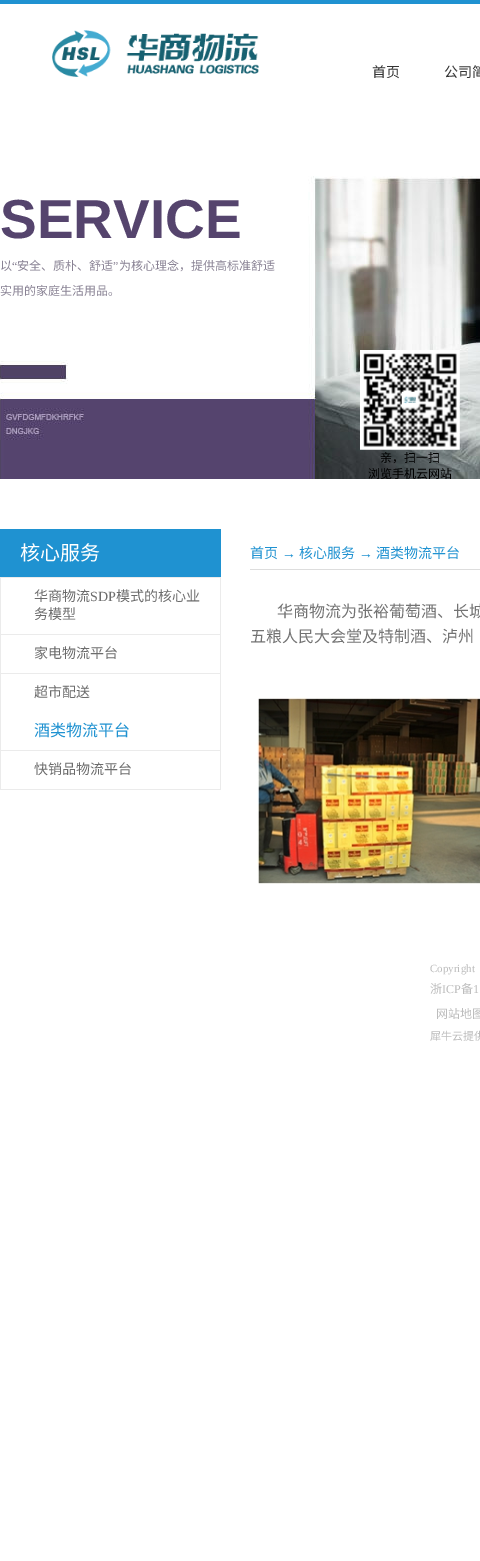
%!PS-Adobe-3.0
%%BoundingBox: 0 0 480 1561
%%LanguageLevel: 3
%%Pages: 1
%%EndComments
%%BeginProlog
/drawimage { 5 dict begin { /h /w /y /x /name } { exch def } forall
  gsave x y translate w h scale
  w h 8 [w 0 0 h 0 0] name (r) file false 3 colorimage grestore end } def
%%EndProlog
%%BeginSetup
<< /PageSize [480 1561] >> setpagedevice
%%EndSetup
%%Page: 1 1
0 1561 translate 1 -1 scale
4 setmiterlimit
1 setgray
0 0 480 1561 rectfill
0.122 0.573 0.82 setrgbcolor
0 0 480 4 rectfill
(images/1.raw) 52 30 207 47 drawimage
(images/2.raw) 0 176 480 303 drawimage
(images/3.raw) 360 350 100 100 drawimage
0 529 221 48 rectfill
0.922 setgray
220 577 1 213 rectfill
0 789 221 1 rectfill
0 577 1 213 rectfill
1 577 219 1 rectfill
1 634 219 1 rectfill
1 673 219 1 rectfill
1 750 219 1 rectfill
0.867 setgray
250 569 230 1 rectfill
(images/4.raw) 257 697 223 187 drawimage
/NotoSansCJKSC-Regular [14 0 0 -14 0 0] selectfont
0.2 setgray
372 77 moveto (首页) show
444 77 moveto (公司简) show
/LiberationSans-Bold [55 0 0 -55 0 0] selectfont
0.333 0.267 0.427 setrgbcolor
0 238 moveto (SERVICE) show
/NotoSansCJKSC-Regular [12 0 0 -12 0 0] selectfont
0.537 0.51 0.58 setrgbcolor
0 270 moveto (以) show
/LiberationSerif-Regular [12 0 0 -12 0 0] selectfont
12 270 moveto (“) show
/NotoSansCJKSC-Regular [12 0 0 -12 0 0] selectfont
17 270 moveto (安全、质朴、舒适) show
/LiberationSerif-Regular [12 0 0 -12 0 0] selectfont
113 270 moveto (”) show
/NotoSansCJKSC-Regular [12 0 0 -12 0 0] selectfont
119 270 moveto (为核心理念，提供高标准舒适) show
0 295 moveto (实用的家庭生活用品。) show
0 setgray
380 462 moveto (亲，扫一扫) show
368 478 moveto (浏览手机云网站) show
/NotoSansCJKSC-Regular [20 0 0 -20 0 0] selectfont
1 setgray
20 560 moveto (核心服务) show
/NotoSansCJKSC-Regular [14 0 0 -14 0 0] selectfont
0.424 setgray
34 601 moveto (华商物流) show
/LiberationSerif-Regular [14 0 0 -14 0 0] selectfont
90 601 moveto (SDP) show
/NotoSansCJKSC-Regular [14 0 0 -14 0 0] selectfont
116 601 moveto (模式的核心业) show
34 619 moveto (务模型) show
34 658 moveto (家电物流平台) show
34 697 moveto (超市配送) show
/NotoSansCJKSC-Regular [16 0 0 -16 0 0] selectfont
0.122 0.573 0.82 setrgbcolor
34 736 moveto (酒类物流平台) show
/NotoSansCJKSC-Regular [14 0 0 -14 0 0] selectfont
0.424 setgray
34 774 moveto (快销品物流平台) show
0.122 0.573 0.82 setrgbcolor
250 558 moveto (首页) show
/LiberationSerif-Regular [14 0 0 -14 0 0] selectfont
282 558 moveto (→) show
/NotoSansCJKSC-Regular [14 0 0 -14 0 0] selectfont
299 558 moveto (核心服务) show
/LiberationSerif-Regular [14 0 0 -14 0 0] selectfont
359 558 moveto (→) show
/NotoSansCJKSC-Regular [14 0 0 -14 0 0] selectfont
376 558 moveto (酒类物流平台) show
/NotoSansCJKSC-Regular [16 0 0 -16 0 0] selectfont
0.451 setgray
277 617 moveto (华商物流为张裕葡萄酒、长城) show
250 642 moveto (五粮人民大会堂及特制酒、泸州) show
/LiberationSerif-Regular [11 0 0 -11 0 0] selectfont
0.741 setgray
430 972 moveto (Copyright) show
/NotoSansCJKSC-Regular [12 0 0 -12 0 0] selectfont
430 993 moveto (浙) show
/LiberationSerif-Regular [12 0 0 -12 0 0] selectfont
442 993 moveto (ICP) show
/NotoSansCJKSC-Regular [12 0 0 -12 0 0] selectfont
461 993 moveto (备) show
/LiberationSerif-Regular [12 0 0 -12 0 0] selectfont
473 993 moveto (1) show
/NotoSansCJKSC-Regular [12 0 0 -12 0 0] selectfont
436 1018 moveto (网站地图) show
/NotoSansCJKSC-Regular [11 0 0 -11 0 0] selectfont
430 1040 moveto (犀牛云提供) show
showpage
%%EOF
